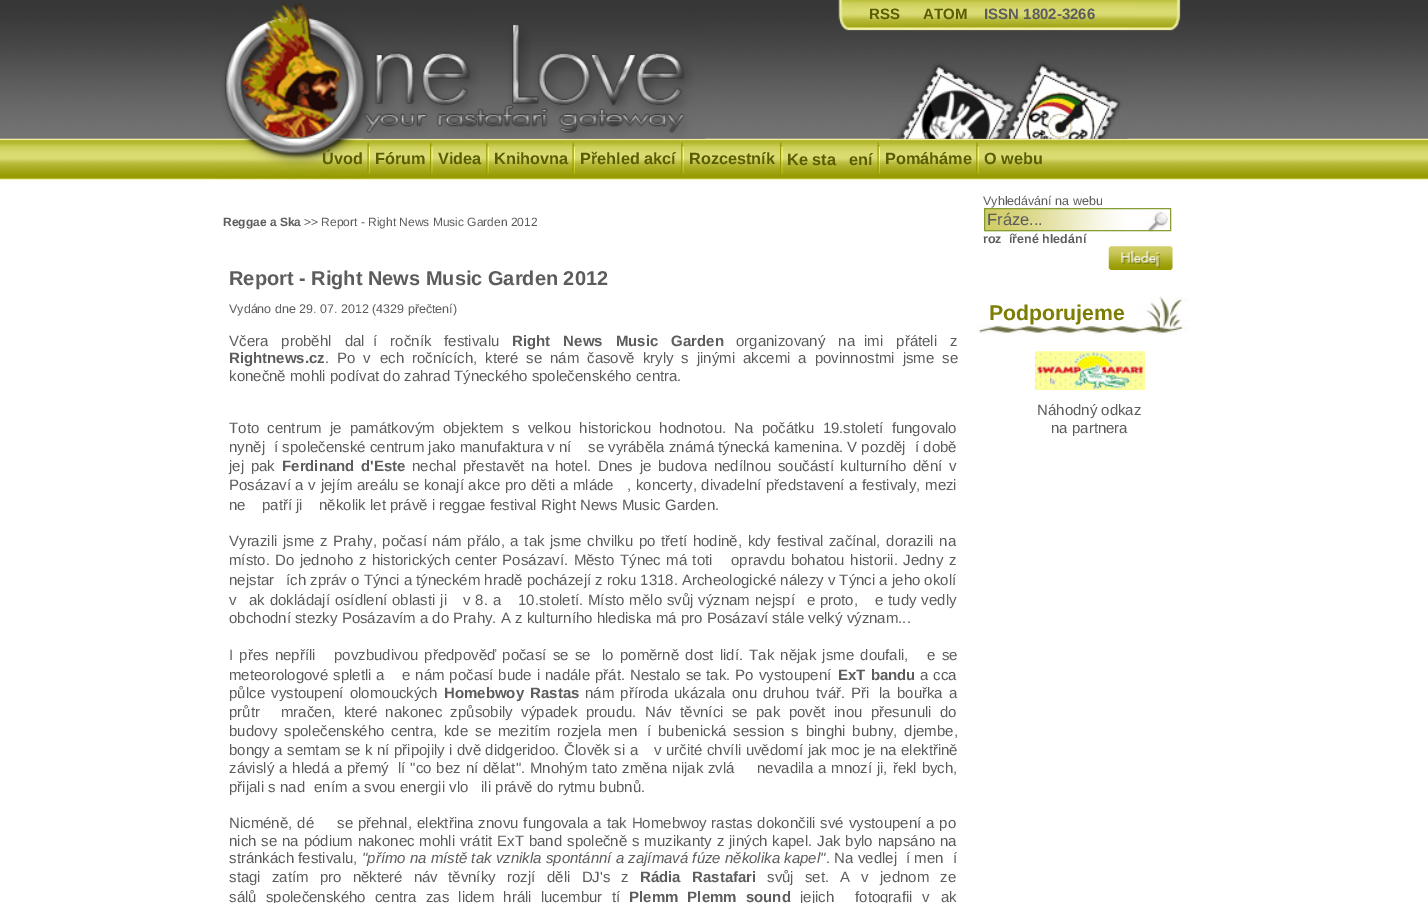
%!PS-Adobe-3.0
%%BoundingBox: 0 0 1428 903
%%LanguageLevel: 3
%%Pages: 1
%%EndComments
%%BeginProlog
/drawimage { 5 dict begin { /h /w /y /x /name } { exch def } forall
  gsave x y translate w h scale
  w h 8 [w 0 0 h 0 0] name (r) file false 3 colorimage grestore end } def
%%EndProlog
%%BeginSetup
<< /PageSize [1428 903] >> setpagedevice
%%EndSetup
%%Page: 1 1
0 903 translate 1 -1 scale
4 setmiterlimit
1 setgray
0 0 1428 903 rectfill
(images/1.raw) 0 0 1428 180 drawimage
(images/2.raw) 215 2 490 137 drawimage
(images/3.raw) 838 0 343 31 drawimage
(images/4.raw) 890 60 238 79 drawimage
(images/5.raw) 215 138 148 41 drawimage
(images/6.raw) 367 142 3 33 drawimage
(images/7.raw) 430 142 3 33 drawimage
(images/8.raw) 486 142 3 33 drawimage
(images/9.raw) 572 142 3 33 drawimage
(images/10.raw) 681 142 3 33 drawimage
(images/7.raw) 780 142 3 33 drawimage
(images/11.raw) 877 142 3 33 drawimage
(images/12.raw) 976 142 3 33 drawimage
(images/13.raw) 985 209 185 23 drawimage
0.522 0.616 0.192 setrgbcolor
984.5 208.5 186 22 rectstroke
(images/14.raw) 1108 246 65 24 drawimage
(images/15.raw) 977 295 211 40 drawimage
(images/16.raw) 1035 351 110 39 drawimage
/LiberationSans-Bold [15 0 0 -15 0 0] selectfont
0.349 0.361 0 setrgbcolor
869 19 moveto (RSS) show
923 19 moveto (ATOM) show
0.361 setgray
984 19 moveto (ISSN 1802-3266) show
/LiberationSans-Bold [16.25 0 0 -16.25 0 0] selectfont
0.349 0.361 0 setrgbcolor
322 164 moveto (Úvod) show
375 164 moveto (Fórum) show
438 164 moveto (Videa) show
494 164 moveto (Knihovna) show
580 164 moveto (Přehled akcí) show
689 164 moveto (Rozcestník) show
787 165 moveto (Ke sta) show
849 165 moveto (ení) show
885 164 moveto (Pomáháme) show
984 164 moveto (O webu) show
/LiberationSans-Bold [12 0 0 -12 0 0] selectfont
0.361 setgray
223 226 moveto (Reggae a Ska) show
/LiberationSans-Regular [12 0 0 -12 0 0] selectfont
304 226 moveto (>> Report - Right News Music Garden 2012) show
/LiberationSans-Bold [20 0 0 -20 0 0] selectfont
229 285 moveto (Report - Right News Music Garden 2012) show
/LiberationSans-Regular [12.5 0 0 -12.5 0 0] selectfont
229 313 moveto (Vydáno dne 29. 07. 2012 \(4329 přečtení\)) show
/LiberationSans-Regular [15 0 0 -15 0 0] selectfont
229 346 moveto 9 0 32 (Včera proběhl dal) widthshow
373 346 moveto 9 0 32 (í ročník festivalu) widthshow
/LiberationSans-Bold [15 0 0 -15 0 0] selectfont
512 346 moveto 9 0 32 (Right News Music Garden) widthshow
/LiberationSans-Regular [15 0 0 -15 0 0] selectfont
736 346 moveto 9 0 32 (organizovaný na) widthshow
864 346 moveto 9 0 32 (imi přáteli z) widthshow
/LiberationSans-Bold [15 0 0 -15 0 0] selectfont
229 363 moveto (Rightnews.cz) show
/LiberationSans-Regular [15 0 0 -15 0 0] selectfont
325 363 moveto 3.75 0 32 (. Po v) widthshow
380 363 moveto 3.75 0 32 (ech ročnících, které se nám časově kryly s jinými akcemi a povinnostmi jsme se) widthshow
229 381 moveto (konečně mohli podívat do zahrad Týneckého společenského centra.) show
229 433 moveto 4.1 0 32 (Toto centrum je památkovým objektem s velkou historickou hodnotou. Na počátku 19.století fungovalo) widthshow
229 452 moveto (nyněj) show
274 452 moveto (í společenské centrum jako manufaktura v ní) show
588 452 moveto (se vyráběla známá týnecká kamenina. V pozděj) show
915 452 moveto (í době) show
229 471 moveto 2.5 0 32 (jej pak) widthshow
/LiberationSans-Bold [15 0 0 -15 0 0] selectfont
282 471 moveto 2.5 0 32 (Ferdinand d'Este) widthshow
/LiberationSans-Regular [15 0 0 -15 0 0] selectfont
412 471 moveto 2.5 0 32 (nechal přestavět na hotel. Dnes je budova nedílnou součástí kulturního dění v) widthshow
229 490 moveto 0.5 0 32 (Posázaví a v jejím areálu se konají akce pro děti a mláde) widthshow
627 490 moveto 0.5 0 32 (, koncerty, divadelní představení a festivaly, mezi) widthshow
229 510 moveto (ne) show
262 510 moveto (patří ji) show
319 510 moveto (několik let právě i reggae festival Right News Music Garden.) show
229 546 moveto 1.5 0 32 (Vyrazili jsme z Prahy, počasí nám přálo, a tak jsme chvilku po třetí hodině, kdy festival začínal, dorazili na) widthshow
229 565 moveto 1.25 0 32 (místo. Do jednoho z historických center Posázaví. Město Týnec má toti) widthshow
731 565 moveto 1.25 0 32 (opravdu bohatou historii. Jedny z) widthshow
229 585 moveto (nejstar) show
286 585 moveto (ích zpráv o Týnci a týneckém hradě pocházejí z roku 1318. Archeologické nálezy v Týnci a jeho okolí) show
229 605 moveto (v) show
249 605 moveto 0.7 0 32 (ak dokládají osídlení oblasti ji) widthshow
463 605 moveto 0.7 0 32 (v 8. a) widthshow
518 605 moveto 0.7 0 32 (10.století. Místo mělo svůj význam nejspí) widthshow
807 605 moveto (e proto,) show
875 605 moveto 0.7 0 32 (e tudy vedly) widthshow
229 623 moveto (obchodní stezky Posázavím a do Prahy. A z kulturního hlediska má pro Posázaví stále velký význam...) show
229 660 moveto 2 0 32 (I přes nepříli) widthshow
334 660 moveto 2 0 32 (povzbudivou předpověď počasí se se) widthshow
602 660 moveto 2 0 32 (lo poměrně dost lidí. Tak nějak jsme doufali,) widthshow
927 660 moveto 2 0 32 (e se) widthshow
229 680 moveto 0.75 0 32 (meteorologové spletli a) widthshow
402 680 moveto 0.75 0 32 (e nám počasí bude i nadále přát. Nestalo se tak. Po vystoupení) widthshow
/LiberationSans-Bold [15 0 0 -15 0 0] selectfont
838 680 moveto 1 0 32 (ExT bandu) widthshow
/LiberationSans-Regular [15 0 0 -15 0 0] selectfont
920 680 moveto 0.75 0 32 (a cca) widthshow
229 698 moveto 2 0 32 (půlce vystoupení olomouckých) widthshow
/LiberationSans-Bold [15 0 0 -15 0 0] selectfont
444 698 moveto 2 0 32 (Homebwoy Rastas) widthshow
/LiberationSans-Regular [15 0 0 -15 0 0] selectfont
585 698 moveto 2 0 32 (nám příroda ukázala onu druhou tvář. Při) widthshow
879 698 moveto 2 0 32 (la bouřka a) widthshow
229 717 moveto (průtr) show
281 717 moveto 4.25 0 32 (mračen, které nakonec způsobily výpadek proudu. Náv) widthshow
680 717 moveto 4.25 0 32 (těvníci se pak povět) widthshow
834 717 moveto 4.25 0 32 (inou přesunuli do) widthshow
229 736 moveto 2.75 0 32 (budovy společenského centra, kde se mezitím rozjela men) widthshow
647 736 moveto 2.75 0 32 (í bubenická session s binghi bubny, djembe,) widthshow
229 755 moveto 0.25 0 32 (bongy a semtam se k ní připojily i dvě didgeridoo. Člověk si a) widthshow
654 755 moveto 0.25 0 32 (v určité chvíli uvědomí jak moc je na elektřině) widthshow
229 773 moveto 0.75 0 32 (závislý a hledá a přemý) widthshow
398 773 moveto 0.75 0 32 (lí "co bez ní dělat". Mnohým tato změna nijak zvlá) widthshow
757 773 moveto 0.75 0 32 (nevadila a mnozí ji, řekl bych,) widthshow
229 792 moveto (přijali s nad) show
314 792 moveto (ením a svou energii vlo) show
481 792 moveto (ili právě do rytmu bubnů.) show
229 828 moveto 0.75 0 32 (Nicméně, dé) widthshow
337 828 moveto 0.75 0 32 (se přehnal, elektřina znovu fungovala a tak Homebwoy rastas dokončili své vystoupení a po) widthshow
229 846 moveto 0.7 0 32 (nich se na pódium nakonec mohli vrátit ExT band společně s muzikanty z jiných kapel. Jak bylo napsáno na) widthshow
229 863 moveto (stránkách festivalu,) show
/LiberationSans-Italic [15 0 0 -15 0 0] selectfont
362 863 moveto ("přímo na místě tak vznikla spontánní a zajímavá fúze několika kapel") show
/LiberationSans-Regular [15 0 0 -15 0 0] selectfont
826 863 moveto (. Na vedlej) show
906 863 moveto (í men) show
953 863 moveto (í) show
229 882 moveto 7 0 32 (stagi zatím pro některé náv) widthshow
448 882 moveto 7 0 32 (těvníky rozjí) widthshow
547 882 moveto 7 0 32 (děli DJ's z) widthshow
/LiberationSans-Bold [15 0 0 -15 0 0] selectfont
640 882 moveto 7 0 32 (Rádia Rastafari) widthshow
/LiberationSans-Regular [15 0 0 -15 0 0] selectfont
767 882 moveto 7 0 32 (svůj set. A v jednom ze) widthshow
229 902 moveto 5 0 32 (sálů společenského centra zas lidem hráli lucembur) widthshow
612 902 moveto (tí) show
/LiberationSans-Bold [15 0 0 -15 0 0] selectfont
629 902 moveto 5 0 32 (Plemm Plemm sound) widthshow
/LiberationSans-Regular [15 0 0 -15 0 0] selectfont
800 902 moveto (jejich) show
855 902 moveto 5 0 32 (fotografii v) widthshow
941 902 moveto (ak) show
/LiberationSans-Regular [12.5 0 0 -12.5 0 0] selectfont
983 205 moveto (Vyhledávání na webu) show
/LiberationSans-Regular [16.5 0 0 -16.5 0 0] selectfont
987 225 moveto (Fráze...) show
/LiberationSans-Bold [12.5 0 0 -12.5 0 0] selectfont
983 243 moveto (roz) show
1009 243 moveto (ířené hledání) show
/LiberationSans-Bold [21.25 0 0 -21.25 0 0] selectfont
0.494 0.494 0.016 setrgbcolor
989 320 moveto (Podporujeme) show
/LiberationSans-Regular [15 0 0 -15 0 0] selectfont
0.361 setgray
1037 415 moveto (Náhodný odkaz) show
1051 433 moveto (na partnera) show
showpage
%%EOF
